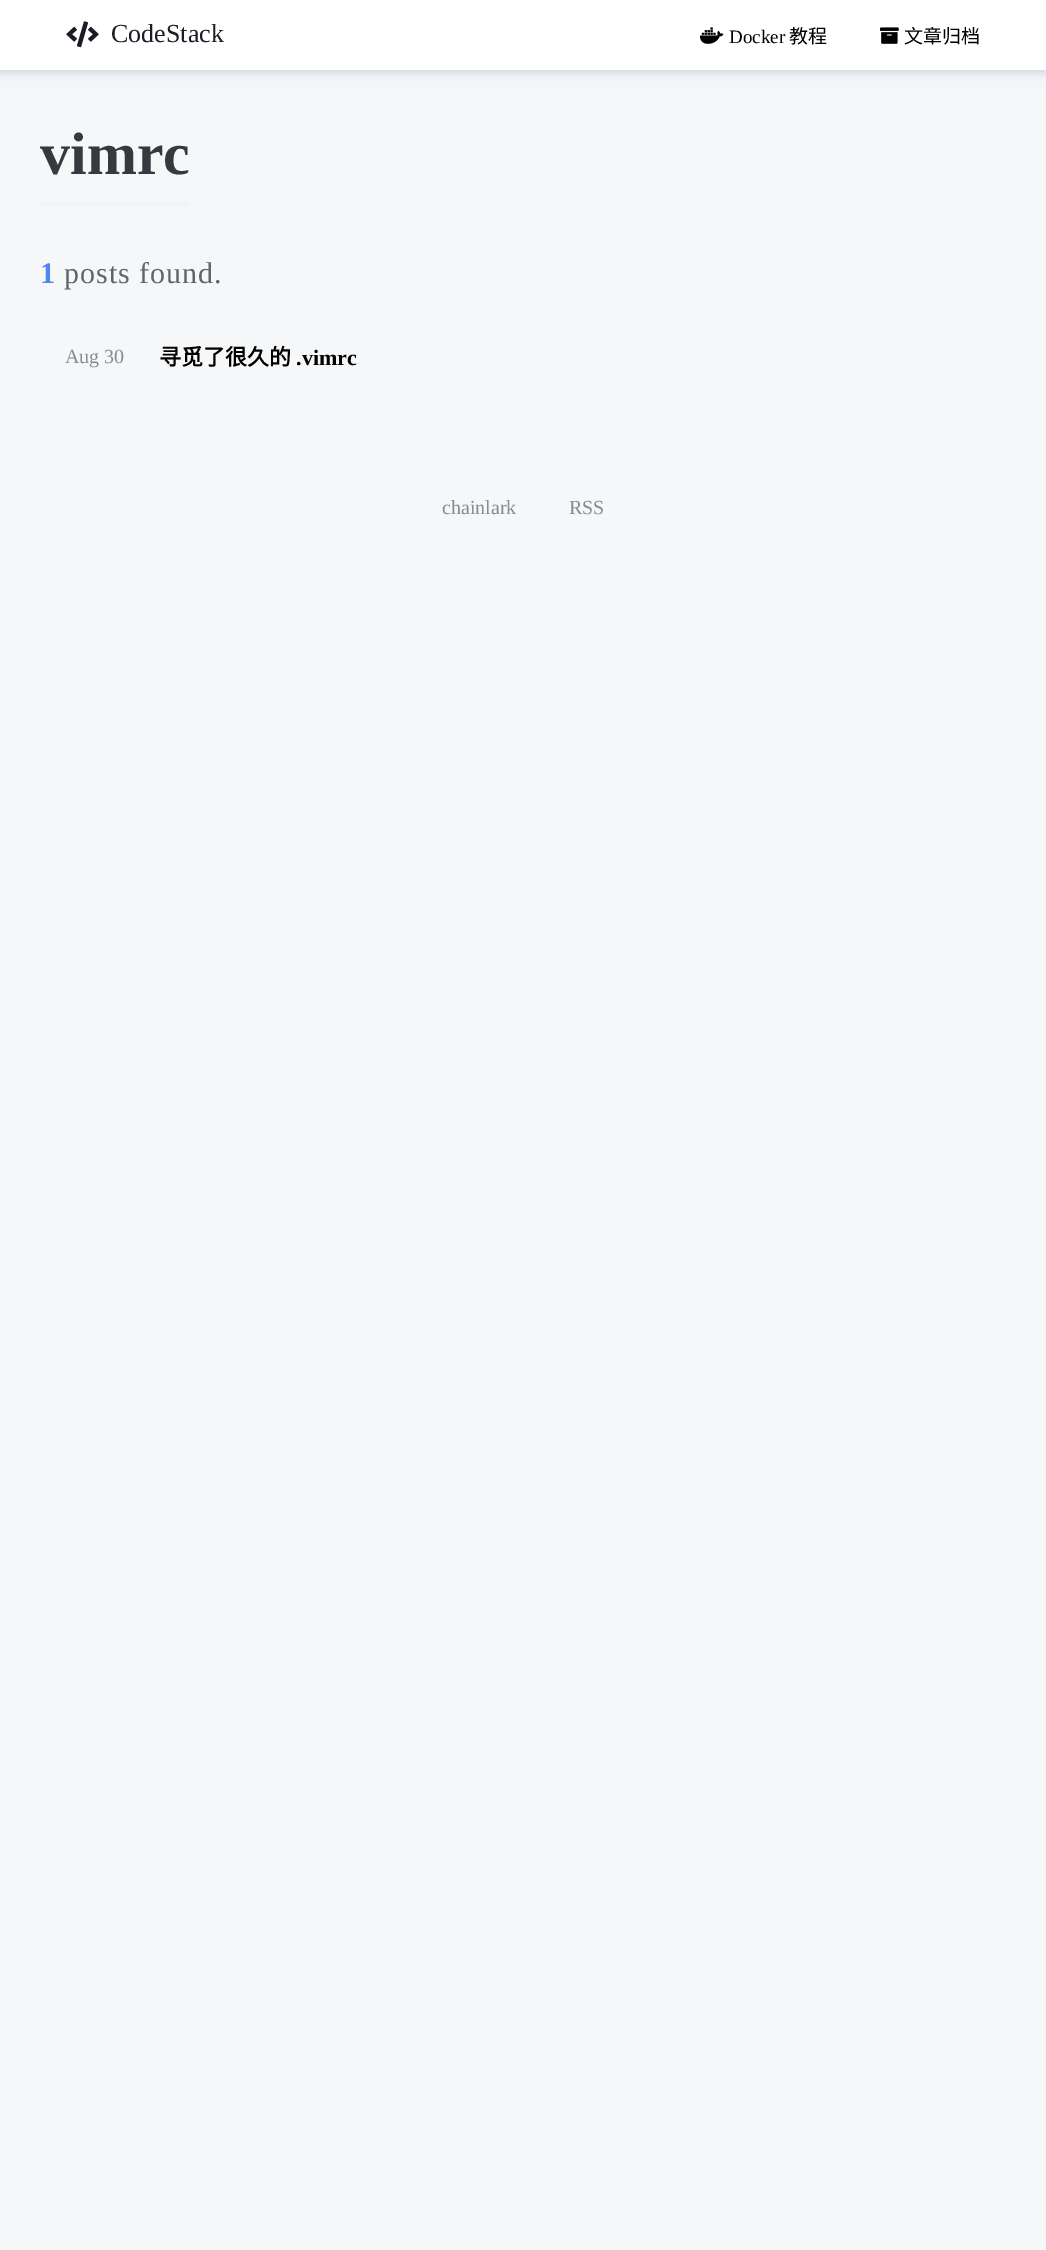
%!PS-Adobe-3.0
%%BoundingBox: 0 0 1046 2250
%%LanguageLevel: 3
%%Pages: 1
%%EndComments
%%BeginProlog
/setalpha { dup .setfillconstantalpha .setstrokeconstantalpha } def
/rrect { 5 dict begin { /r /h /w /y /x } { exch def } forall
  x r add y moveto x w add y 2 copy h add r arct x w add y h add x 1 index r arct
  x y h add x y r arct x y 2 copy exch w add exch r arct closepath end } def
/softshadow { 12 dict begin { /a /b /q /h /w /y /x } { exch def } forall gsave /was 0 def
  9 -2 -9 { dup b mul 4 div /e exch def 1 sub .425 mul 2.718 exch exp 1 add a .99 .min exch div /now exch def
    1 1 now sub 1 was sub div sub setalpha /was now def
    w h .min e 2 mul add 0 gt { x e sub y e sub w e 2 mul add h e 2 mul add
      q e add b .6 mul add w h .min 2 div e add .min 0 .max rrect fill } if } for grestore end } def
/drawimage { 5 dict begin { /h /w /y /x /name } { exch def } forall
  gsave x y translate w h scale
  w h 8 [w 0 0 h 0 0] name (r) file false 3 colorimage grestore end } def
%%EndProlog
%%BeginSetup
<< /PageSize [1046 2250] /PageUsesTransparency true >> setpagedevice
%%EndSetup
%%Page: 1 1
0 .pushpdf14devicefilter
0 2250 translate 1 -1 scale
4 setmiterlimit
0.965 0.969 0.973 setrgbcolor
0 0 1046 2250 rectfill
0.392 0.431 0.549 setrgbcolor
0 3 1046 70 0 2.5 0.15 softshadow
0 4 1046 70 0 8 0.1 softshadow
1 setgray
0 0 1046 70 rectfill
(images/1.raw) 66 21 33 27 drawimage
(images/2.raw) 700 27 24 17 drawimage
(images/3.raw) 880 27 19 17 drawimage
0.945 0.957 0.973 setrgbcolor
40 201 150 5 rectfill
/LiberationSerif-Regular [26 0 0 -26 0 0] selectfont
0.106 0.114 0.145 setrgbcolor
111 42 moveto (CodeStack) show
/LiberationSerif-Regular [19 0 0 -19 0 0] selectfont
0 setgray
729 43 moveto (Docker) show
/NotoSansCJKSC-Regular [19 0 0 -19 0 0] selectfont
789 43 moveto (教程) show
904 43 moveto (文章归档) show
/LiberationSerif-Bold [60 0 0 -60 0 0] selectfont
0.204 0.227 0.251 setrgbcolor
40 174 moveto (vimrc) show
/LiberationSerif-Bold [30 0 0 -30 0 0] selectfont
0.318 0.514 0.961 setrgbcolor
40 283 moveto 1 0 (1) ashow
/LiberationSerif-Regular [30 0 0 -30 0 0] selectfont
0.376 0.396 0.424 setrgbcolor
64 283 moveto 1 0 (posts found.) ashow
/LiberationSerif-Regular [20 0 0 -20 0 0] selectfont
0.522 0.545 0.576 setrgbcolor
65 363 moveto (Aug 30) show
/NotoSansCJKSC-Bold [22 0 0 -22 0 0] selectfont
0 setgray
159 365 moveto (寻觅了很久的) show
/LiberationSerif-Bold [22 0 0 -22 0 0] selectfont
296 365 moveto (.vimrc) show
/LiberationSerif-Regular [20 0 0 -20 0 0] selectfont
0.522 0.545 0.576 setrgbcolor
442 514 moveto (chainlark) show
569 514 moveto (RSS) show
.poppdf14devicefilter showpage
%%EOF
